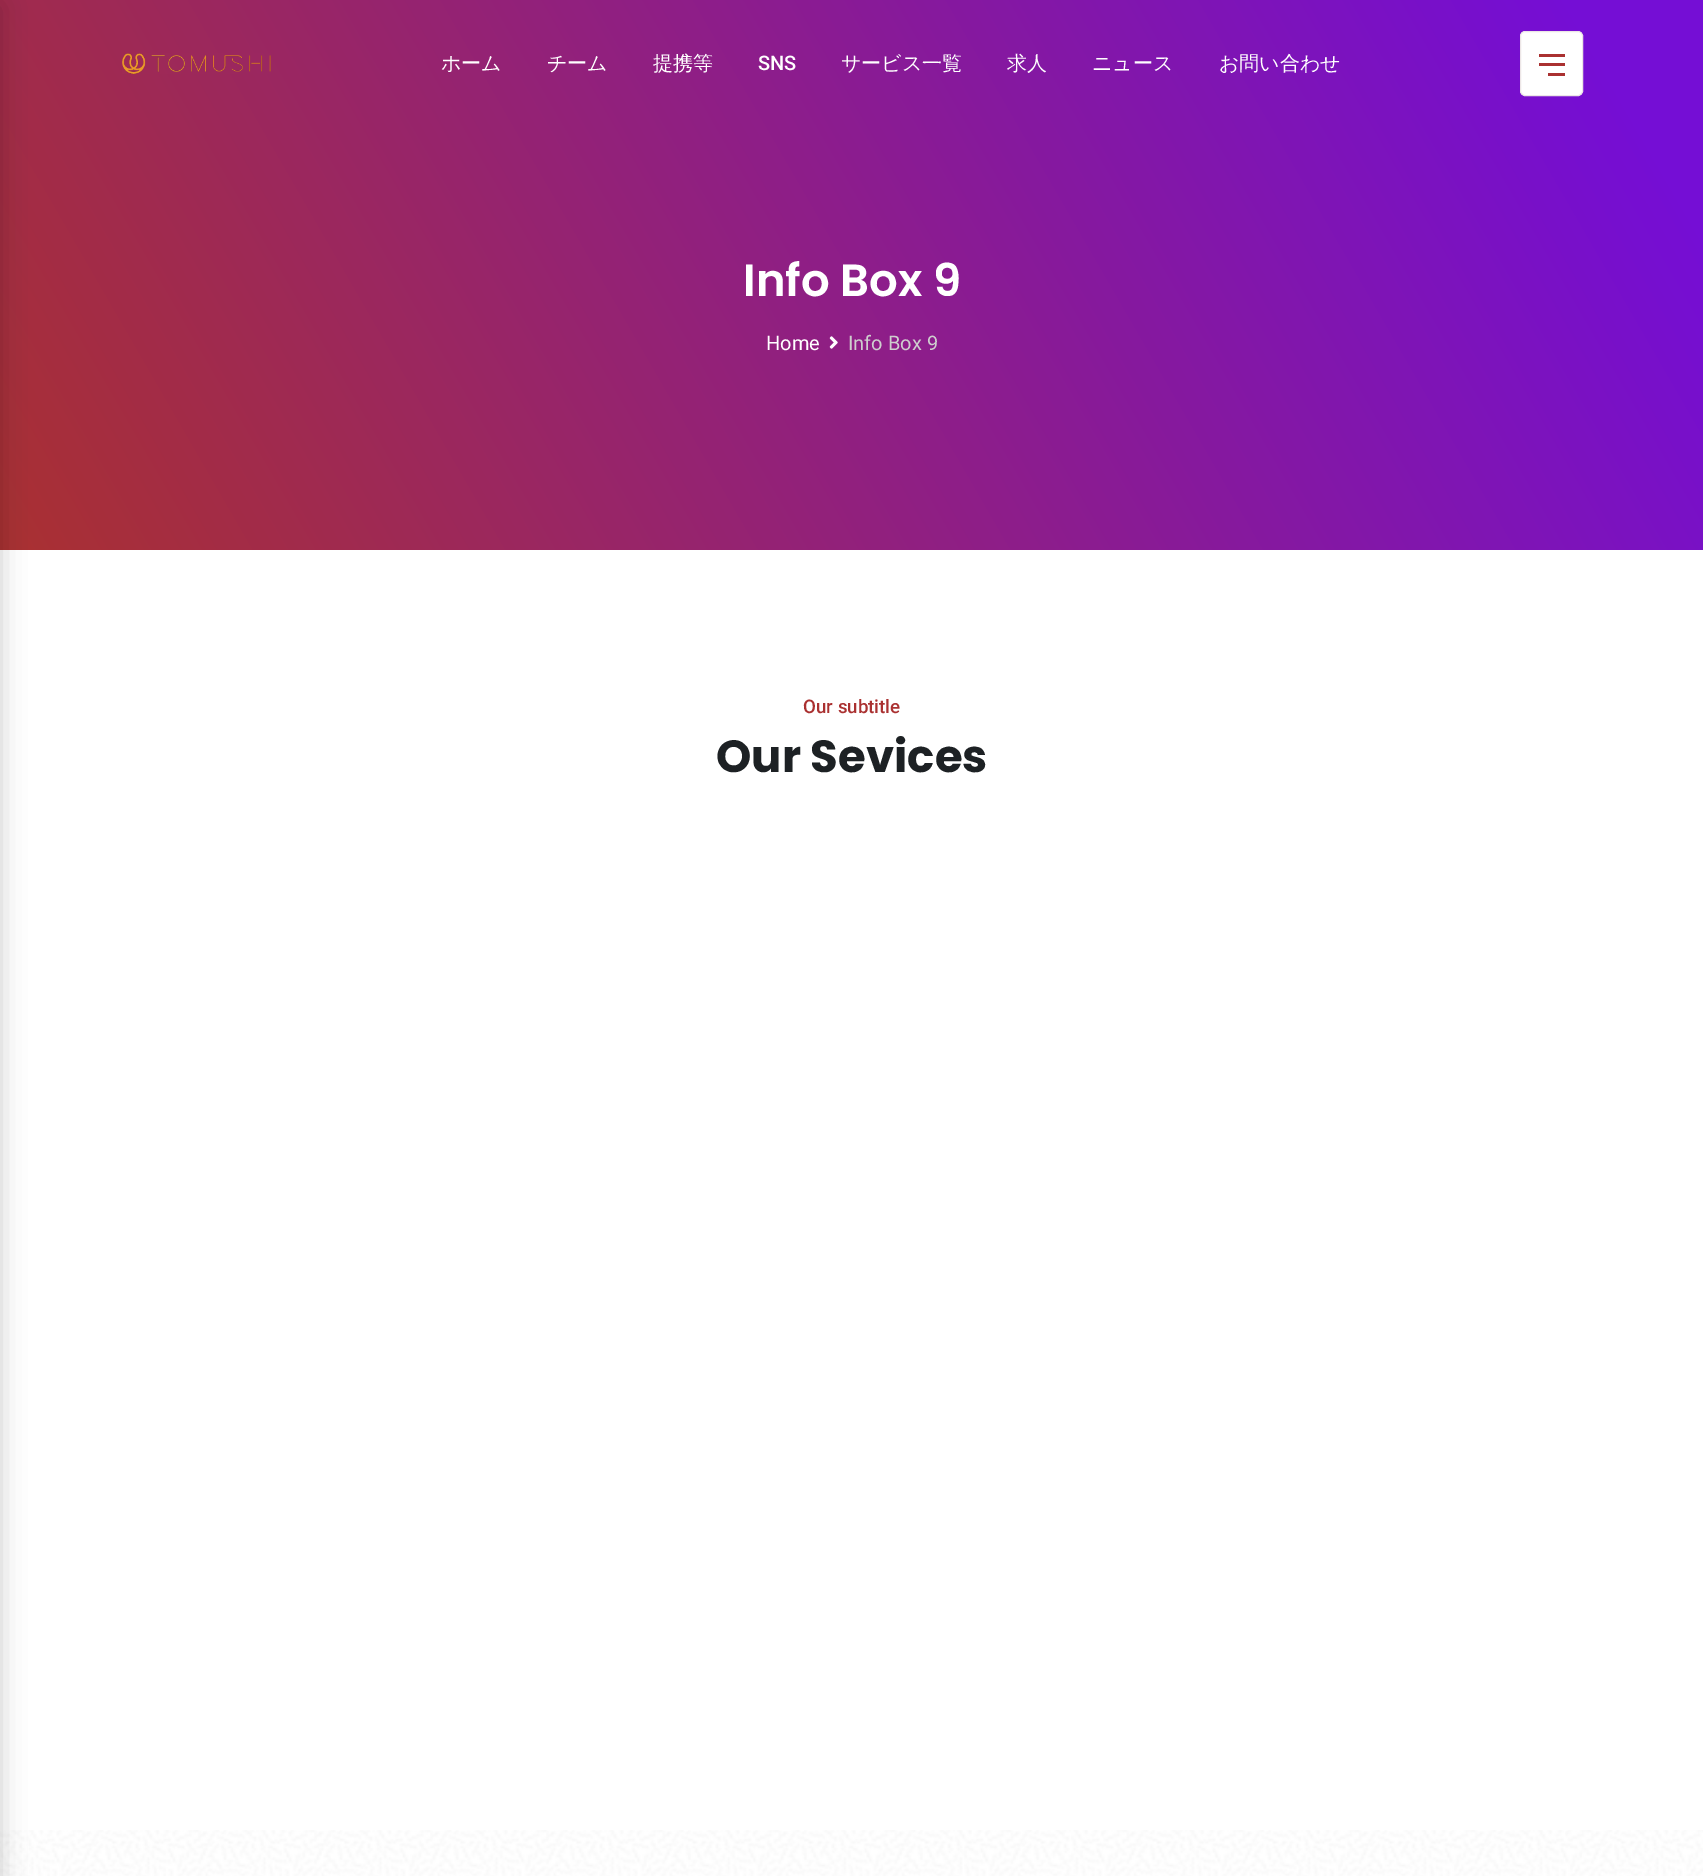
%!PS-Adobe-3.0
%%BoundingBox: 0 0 1703 1876
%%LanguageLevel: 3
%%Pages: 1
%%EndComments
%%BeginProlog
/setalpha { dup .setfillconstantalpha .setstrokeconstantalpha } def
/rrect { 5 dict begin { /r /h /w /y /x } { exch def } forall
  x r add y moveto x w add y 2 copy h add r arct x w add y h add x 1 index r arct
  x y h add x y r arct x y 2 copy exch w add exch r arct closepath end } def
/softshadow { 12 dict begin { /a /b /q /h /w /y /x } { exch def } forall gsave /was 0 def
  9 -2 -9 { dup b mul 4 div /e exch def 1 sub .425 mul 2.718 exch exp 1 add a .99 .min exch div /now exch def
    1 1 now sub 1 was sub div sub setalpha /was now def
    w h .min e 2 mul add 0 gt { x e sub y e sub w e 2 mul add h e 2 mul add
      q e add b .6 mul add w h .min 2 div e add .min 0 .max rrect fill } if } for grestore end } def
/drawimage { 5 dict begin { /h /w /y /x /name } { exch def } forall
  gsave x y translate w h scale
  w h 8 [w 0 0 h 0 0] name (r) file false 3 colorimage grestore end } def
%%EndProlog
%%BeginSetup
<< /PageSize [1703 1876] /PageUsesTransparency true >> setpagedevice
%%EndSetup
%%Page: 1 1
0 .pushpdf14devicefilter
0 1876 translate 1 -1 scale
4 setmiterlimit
1 setgray
0 0 1703 1876 rectfill
gsave newpath 0 0 moveto 1703 0 lineto 1703 550 lineto 0 550 lineto closepath clip newpath
<< /ShadingType 2 /ColorSpace /DeviceRGB /Coords [94 713 1610 -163] /Extend [true true] /Function << /FunctionType 3 /Domain [0 1] /Functions [<< /FunctionType 2 /Domain [0 1] /C0 [0.667 0.192 0.192] /C1 [0.459 0.055 0.835] /N 1 >> << /FunctionType 2 /Domain [0 1] /C0 [0.459 0.055 0.835] /C1 [0.459 0.055 0.835] /N 1 >>] /Bounds [0.93] /Encode [0 1 0 1] >> >> shfill grestore
(images/3.raw) 0 1830 1703 46 drawimage
0 setgray
-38 6 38 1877 0 12.5 0.1 softshadow
-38 6 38 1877 0 12.5 0.1 softshadow
1 setgray
1520.5 31.5 62 64 4.5 rrect gsave fill grestore
0.925 0.902 0.902 setrgbcolor
stroke
0.667 0.192 0.192 setrgbcolor
1539 54 26 3 rectfill
1539 63 26 3 rectfill
1548 73 17 3 rectfill
(images/1.raw) 122 53 149 21 drawimage
(images/2.raw) 829 336 9 13 drawimage
/WenQuanYiZenHei-Medium [20 0 0 -20 0 0] selectfont
1 setgray
441 70 moveto (ホーム) show
547 70 moveto (チーム) show
653 70 moveto (提携等) show
/Roboto-Medium [20 0 0 -20 0 0] selectfont
758 70 moveto (SNS) show
/WenQuanYiZenHei-Medium [20 0 0 -20 0 0] selectfont
841 70 moveto (サービス一覧) show
1007 70 moveto (求人) show
1092 70 moveto (ニュース) show
1219 70 moveto (お問い合わせ) show
/Poppins-SemiBold [45 0 0 -45 0 0] selectfont
743 296 moveto (Info Box 9) show
/Roboto-Regular [20 0 0 -20 0 0] selectfont
766 350 moveto (Home) show
0.808 setgray
848 350 moveto (Info Box 9) show
/Roboto-Medium [18.75 0 0 -18.75 0 0] selectfont
0.667 0.192 0.192 setrgbcolor
803 713 moveto (Our subtitle) show
/Poppins-Bold [45 0 0 -45 0 0] selectfont
0.114 0.129 0.141 setrgbcolor
716 772 moveto (Our Sevices) show
.poppdf14devicefilter showpage
%%EOF
